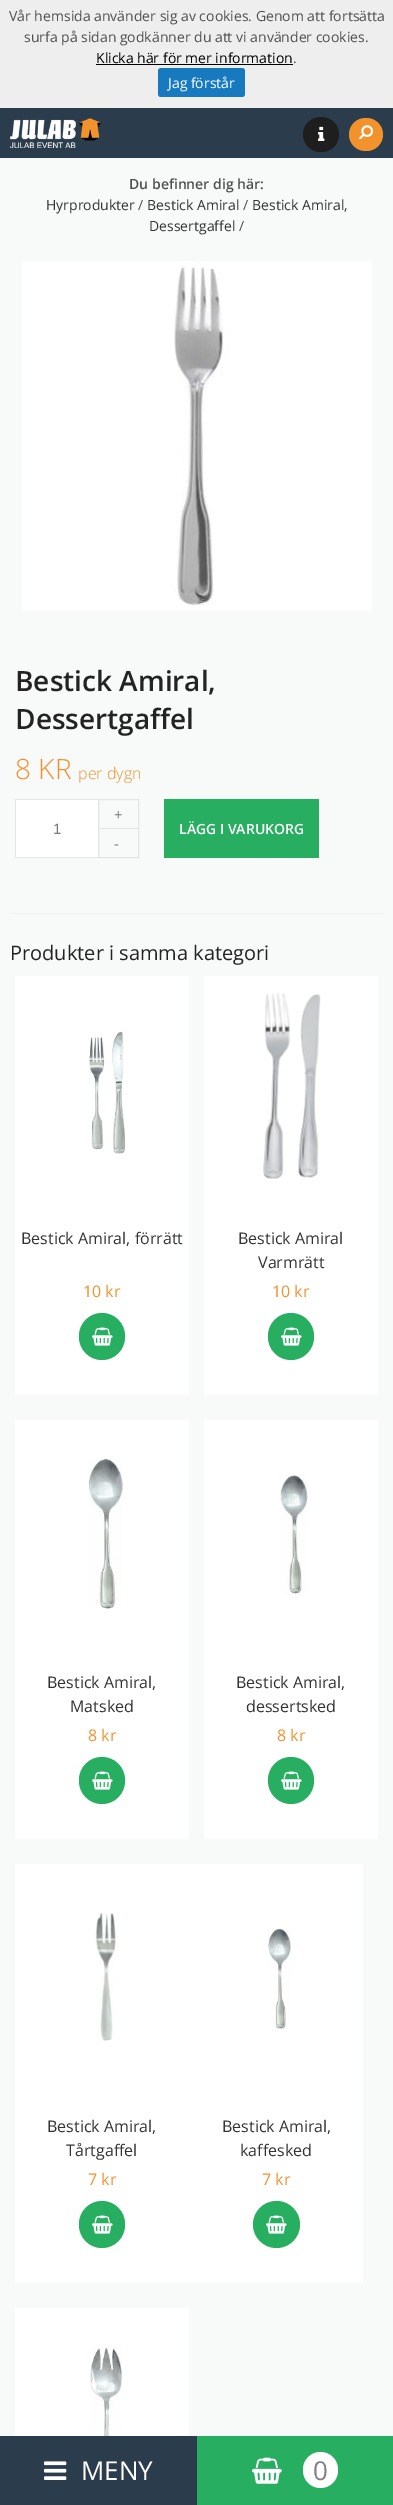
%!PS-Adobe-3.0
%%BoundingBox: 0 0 393 2505
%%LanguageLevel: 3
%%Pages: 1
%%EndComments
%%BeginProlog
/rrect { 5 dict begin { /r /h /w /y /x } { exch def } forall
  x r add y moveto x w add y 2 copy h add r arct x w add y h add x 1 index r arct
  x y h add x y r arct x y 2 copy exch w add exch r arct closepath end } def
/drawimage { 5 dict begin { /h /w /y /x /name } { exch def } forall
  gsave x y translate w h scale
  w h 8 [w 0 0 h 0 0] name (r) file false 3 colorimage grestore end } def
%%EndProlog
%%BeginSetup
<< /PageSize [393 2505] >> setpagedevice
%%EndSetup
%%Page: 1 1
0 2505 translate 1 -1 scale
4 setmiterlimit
0.973 0.976 0.976 setrgbcolor
0 0 393 2505 rectfill
0.933 setgray
0 0 393 108 rectfill
0 setgray
96 64 197 1 rectfill
0.09 0.475 0.745 setrgbcolor
158 68 87 29 3 rrect fill
0.169 0.235 0.302 setrgbcolor
0 108 393 50 rectfill
(images/1.raw) 10 118 91 30 drawimage
0.118 setgray
303 117 36 35 17.5 rrect fill
(images/2.raw) 318 126 7 15 drawimage
0.949 0.573 0.176 setrgbcolor
349 118 34 33 16.5 rrect fill
(images/3.raw) 359 125 15 15 drawimage
(images/4.raw) 22 261 350 350 drawimage
1 setgray
16 800 82 57 rectfill
0.894 setgray
15 799 83 1 rectfill
15 857 83 1 rectfill
15 799 1 59 rectfill
98.5 799.5 40 58 rectstroke
99 828 39 1 rectfill
0.153 0.682 0.376 setrgbcolor
164 799 155 59 rectfill
0.945 setgray
10 913 373 1 rectfill
1 setgray
15 976 174 419 rectfill
(images/5.raw) 89 1031 37 123 drawimage
0.153 0.682 0.376 setrgbcolor
79 1313 46 47 23 rrect fill
(images/6.raw) 92 1327 21 19 drawimage
1 setgray
204 976 174 419 rectfill
(images/7.raw) 263 993 58 186 drawimage
0.153 0.682 0.376 setrgbcolor
268 1313 46 47 23 rrect fill
(images/6.raw) 281 1327 21 19 drawimage
1 setgray
15 1420 174 419 rectfill
(images/8.raw) 88 1459 35 150 drawimage
0.153 0.682 0.376 setrgbcolor
79 1757 46 47 23 rrect fill
(images/6.raw) 92 1771 21 19 drawimage
1 setgray
204 1420 174 419 rectfill
(images/9.raw) 280 1474 28 121 drawimage
0.153 0.682 0.376 setrgbcolor
268 1757 46 47 23 rrect fill
(images/6.raw) 281 1771 21 19 drawimage
1 setgray
15 1864 348 419 rectfill
(images/10.raw) 95 1913 23 129 drawimage
0.153 0.682 0.376 setrgbcolor
79 2201 46 47 23 rrect fill
(images/6.raw) 92 2215 21 19 drawimage
(images/11.raw) 268 1928 23 101 drawimage
newpath 276.5 2224.5 23.5 0 360 arc closepath fill
(images/6.raw) 266 2215 21 19 drawimage
1 setgray
15 2308 174 128 rectfill
(images/12.raw) 90 2345 32 91 drawimage
0.169 0.235 0.298 setrgbcolor
0 2436 197 69 rectfill
(images/13.raw) 44 2461 23 19 drawimage
0.153 0.682 0.38 setrgbcolor
197 2436 196 69 rectfill
(images/14.raw) 252 2457 30 27 drawimage
1 setgray
303 2452 35 36 17.5 rrect fill
/OpenSans-Regular [14 0 0 -14 0 0] selectfont
0.31 setgray
9 21 moveto (Vår hemsida använder sig av cookies. Genom att fortsätta) show
24 42 moveto (surfa på sidan godkänner du att vi använder cookies.) show
0 setgray
96 63 moveto (Klicka här för mer information) show
0.31 setgray
293 63 moveto (.) show
1 setgray
168 88 moveto (Jag förstår) show
/OpenSans-SemiBold [14 0 0 -14 0 0] selectfont
0.31 setgray
129 189 moveto (Du befinner dig här:) show
/OpenSans-Regular [14 0 0 -14 0 0] selectfont
0.2 setgray
46 210 moveto (Hyrprodukter) show
0.31 setgray
138 210 moveto (/) show
0.2 setgray
147 210 moveto (Bestick Amiral) show
0.31 setgray
243 210 moveto (/) show
0.2 setgray
252 210 moveto (Bestick Amiral,) show
149 231 moveto (Dessertgaffel) show
0.31 setgray
239 231 moveto (/) show
/OpenSans-SemiBold [28 0 0 -28 0 0] selectfont
0.137 setgray
15 691 moveto (Bestick Amiral,) show
15 729 moveto (Dessertgaffel) show
/OpenSans-Light [28 0 0 -28 0 0] selectfont
0.949 0.573 0.176 setrgbcolor
15 779 moveto (8 KR) show
/OpenSans-Light [16 0 0 -16 0 0] selectfont
78 779 moveto (per dygn) show
/LiberationSans-Regular [15 0 0 -15 0 0] selectfont
0.467 setgray
53 834 moveto (1) show
/OpenSans-Regular [15 0 0 -15 0 0] selectfont
114 820 moveto (+) show
114 849 moveto (-) show
/OpenSans-SemiBold [14 0 0 -14 0 0] selectfont
1 setgray
179 834 moveto (LÄGG I VARUKORG) show
/OpenSans-Regular [20 0 0 -20 0 0] selectfont
0.137 setgray
10 960 moveto (Produkter i samma kategori) show
/OpenSans-Regular [16 0 0 -16 0 0] selectfont
0.2 setgray
21 1244 moveto (Bestick Amiral, förrätt) show
0.949 0.573 0.176 setrgbcolor
83 1297 moveto (10 kr) show
0.2 setgray
238 1244 moveto (Bestick Amiral) show
258 1268 moveto (Varmrätt) show
0.949 0.573 0.176 setrgbcolor
272 1297 moveto (10 kr) show
0.2 setgray
47 1688 moveto (Bestick Amiral,) show
70 1712 moveto (Matsked) show
0.949 0.573 0.176 setrgbcolor
88 1741 moveto (8 kr) show
0.2 setgray
236 1688 moveto (Bestick Amiral,) show
246 1712 moveto (dessertsked) show
0.949 0.573 0.176 setrgbcolor
277 1741 moveto (8 kr) show
0.2 setgray
47 2132 moveto (Bestick Amiral,) show
66 2156 moveto (Tårtgaffel) show
0.949 0.573 0.176 setrgbcolor
88 2185 moveto (7 kr) show
0.2 setgray
222 2132 moveto (Bestick Amiral,) show
240 2156 moveto (kaffesked) show
0.949 0.573 0.176 setrgbcolor
262 2185 moveto (7 kr) show
/OpenSans-Regular [26 0 0 -26 0 0] selectfont
1 setgray
81 2480 moveto (MENY) show
0.506 setgray
313 2480 moveto (0) show
showpage
%%EOF
